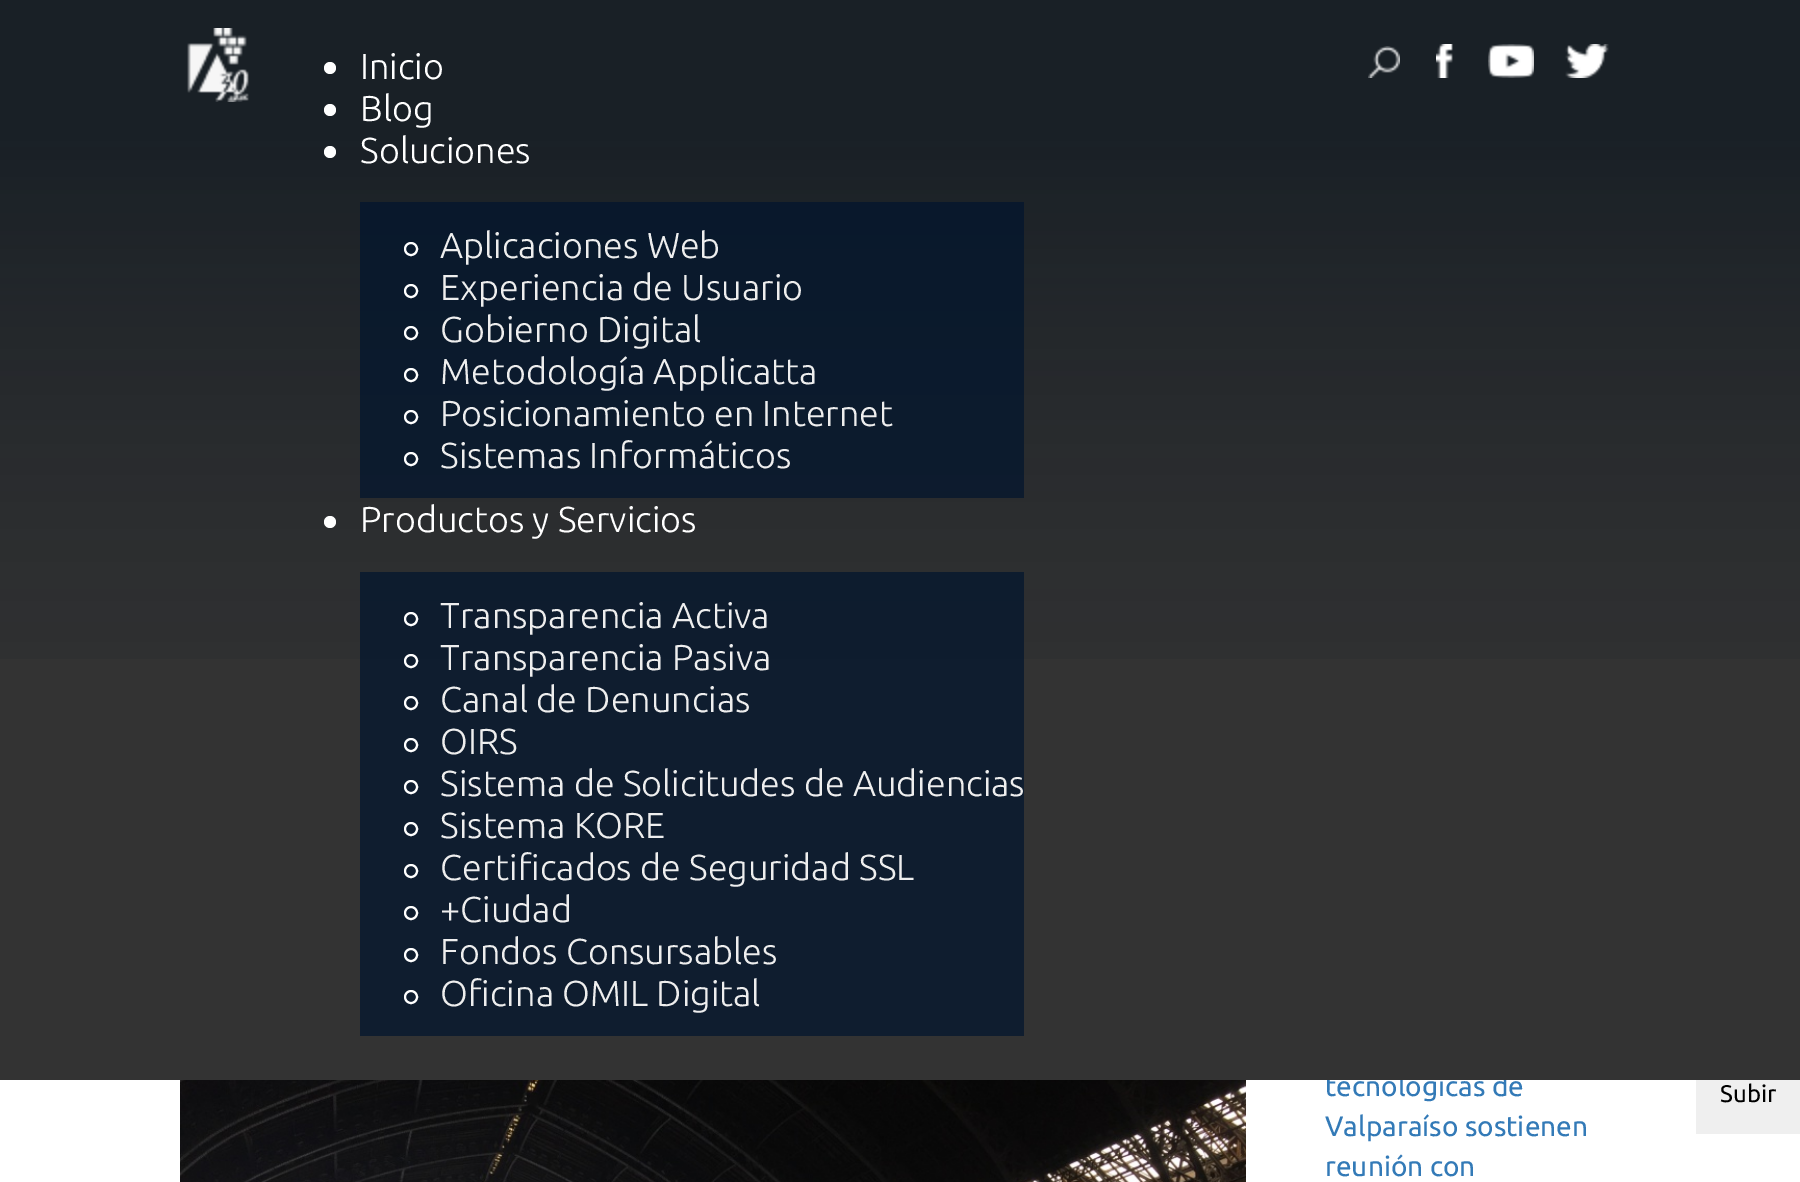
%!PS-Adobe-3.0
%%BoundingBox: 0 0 1800 1182
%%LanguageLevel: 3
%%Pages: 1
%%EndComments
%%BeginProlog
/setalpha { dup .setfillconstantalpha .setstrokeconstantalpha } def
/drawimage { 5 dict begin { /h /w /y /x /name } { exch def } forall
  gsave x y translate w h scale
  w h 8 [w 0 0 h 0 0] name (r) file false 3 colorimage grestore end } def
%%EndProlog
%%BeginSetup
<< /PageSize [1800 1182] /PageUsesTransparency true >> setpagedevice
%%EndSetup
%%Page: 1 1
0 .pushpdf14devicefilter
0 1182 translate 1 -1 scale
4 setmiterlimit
1 setgray
0 0 1800 1182 rectfill
(images/7.raw) 180 1080 1066 102 drawimage
0.937 setgray
1696 1080 104 54 rectfill
/Ubuntu-Regular [28 0 0 -28 0 0] selectfont
0.2 0.478 0.718 setrgbcolor
1325 1096 moveto (tecnológicas de) show
0.2 setgray
0 0 1800 1080 rectfill
(images/1.raw) 0 0 1800 659 drawimage
(images/6.raw) 1565 44 44 34 drawimage
(images/5.raw) 1488 44 46 34 drawimage
(images/4.raw) 1436 44 17 34 drawimage
(images/3.raw) 1368 46 32 32 drawimage
0.7 setalpha
0 0.078 0.176 setrgbcolor
360 572 664 464 rectfill
/Ubuntu-Light [36 0 0 -36 0 0] selectfont
1 setalpha
0.933 setgray
440 1006 moveto (Oficina OMIL Digital) show
1 setgray
2 setlinewidth
newpath 411 997 6 0 360 arc closepath stroke
0.933 setgray
440 964 moveto (Fondos Consursables) show
1 setgray
newpath 411 955 6 0 360 arc closepath stroke
0.933 setgray
440 922 moveto (+Ciudad) show
1 setgray
newpath 411 913 6 0 360 arc closepath stroke
0.933 setgray
440 880 moveto (Certificados de Seguridad SSL) show
1 setgray
newpath 411 871 6 0 360 arc closepath stroke
0.933 setgray
440 838 moveto (Sistema KORE) show
1 setgray
newpath 411 829 6 0 360 arc closepath stroke
0.933 setgray
440 796 moveto (Sistema de Solicitudes de Audiencias) show
1 setgray
newpath 411 787 6 0 360 arc closepath stroke
0.933 setgray
440 754 moveto (OIRS) show
1 setgray
newpath 411 745 6 0 360 arc closepath stroke
0.933 setgray
440 712 moveto (Canal de Denuncias) show
1 setgray
newpath 411 703 6 0 360 arc closepath stroke
0.933 setgray
440 670 moveto (Transparencia Pasiva) show
1 setgray
newpath 411 661 6 0 360 arc closepath stroke
0.933 setgray
440 628 moveto (Transparencia Activa) show
1 setgray
newpath 411 619 6 0 360 arc closepath stroke
360 532 moveto (Productos y Servicios) show
newpath 330 522 6 0 360 arc closepath fill
0.7 setalpha
0 0.078 0.176 setrgbcolor
360 202 664 296 rectfill
1 setalpha
0.933 setgray
440 468 moveto (Sistemas Informáticos) show
1 setgray
newpath 411 459 6 0 360 arc closepath stroke
0.933 setgray
440 426 moveto (Posicionamiento en Internet) show
1 setgray
newpath 411 417 6 0 360 arc closepath stroke
0.933 setgray
440 384 moveto (Metodología Applicatta) show
1 setgray
newpath 411 375 6 0 360 arc closepath stroke
0.933 setgray
440 342 moveto (Gobierno Digital) show
1 setgray
newpath 411 333 6 0 360 arc closepath stroke
0.933 setgray
440 300 moveto (Experiencia de Usuario) show
1 setgray
newpath 411 291 6 0 360 arc closepath stroke
0.933 setgray
440 258 moveto (Aplicaciones Web) show
1 setgray
newpath 411 249 6 0 360 arc closepath stroke
360 163 moveto (Soluciones) show
newpath 330 152 6 0 360 arc closepath fill
360 121 moveto (Blog) show
newpath 330 110 6 0 360 arc closepath fill
360 79 moveto (Inicio) show
newpath 330 68 6 0 360 arc closepath fill
(images/2.raw) 187 28 62 74 drawimage
/Ubuntu-Regular [28 0 0 -28 0 0] selectfont
0.2 0.478 0.718 setrgbcolor
1325 1136 moveto (Valparaíso sostienen) show
1325 1176 moveto (reunión con) show
/Ubuntu-Regular [24 0 0 -24 0 0] selectfont
0 setgray
1720 1102 moveto (Subir) show
.poppdf14devicefilter showpage
%%EOF
